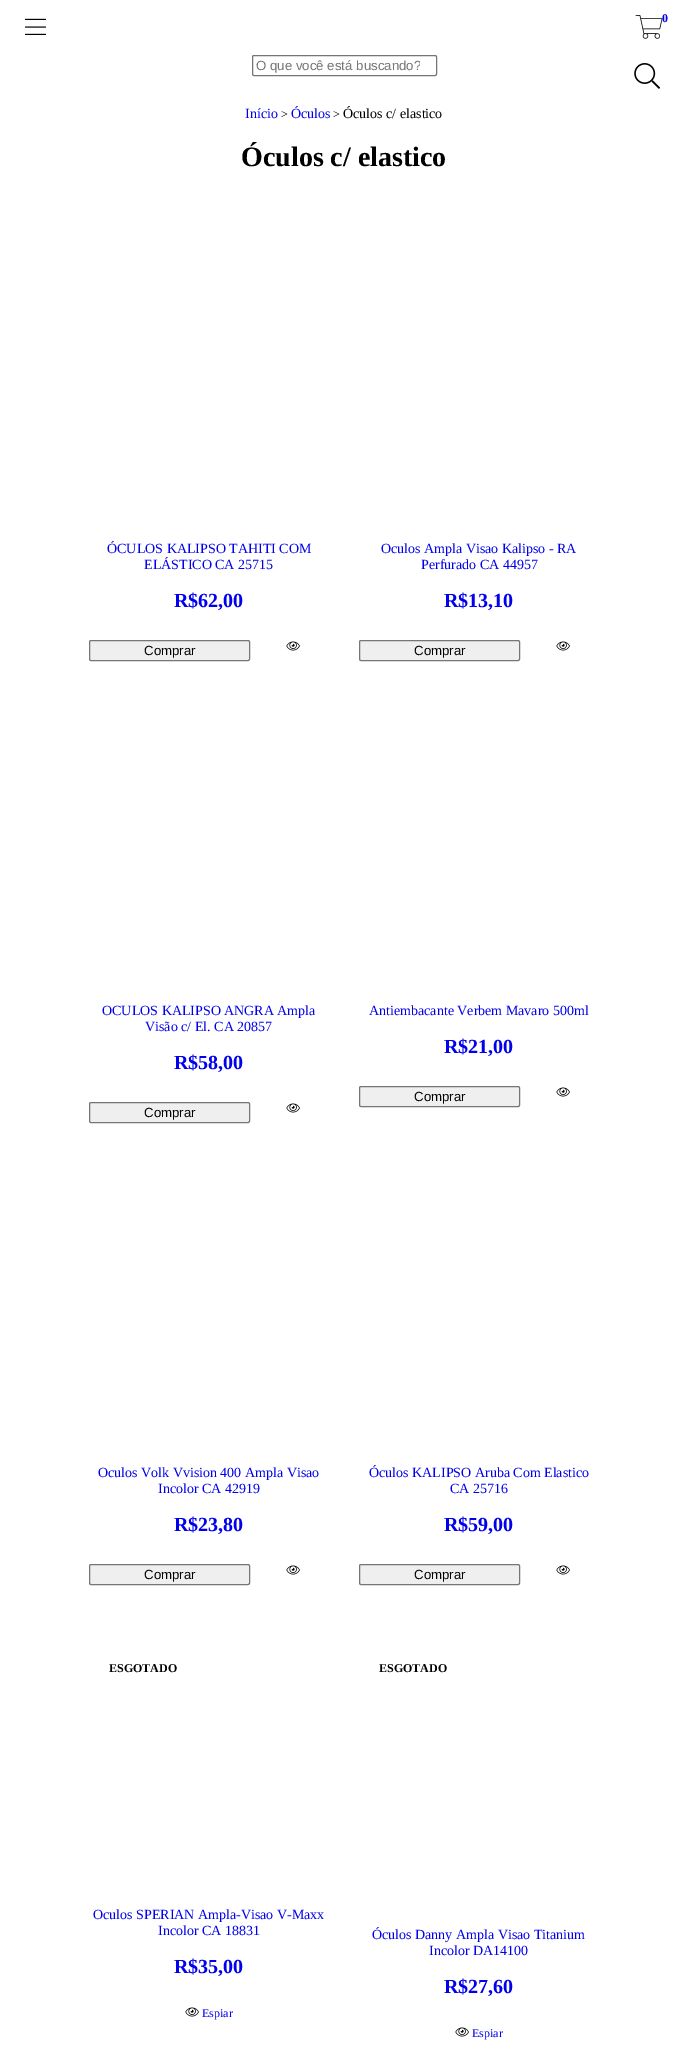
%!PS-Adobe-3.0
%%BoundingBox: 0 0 688 2067
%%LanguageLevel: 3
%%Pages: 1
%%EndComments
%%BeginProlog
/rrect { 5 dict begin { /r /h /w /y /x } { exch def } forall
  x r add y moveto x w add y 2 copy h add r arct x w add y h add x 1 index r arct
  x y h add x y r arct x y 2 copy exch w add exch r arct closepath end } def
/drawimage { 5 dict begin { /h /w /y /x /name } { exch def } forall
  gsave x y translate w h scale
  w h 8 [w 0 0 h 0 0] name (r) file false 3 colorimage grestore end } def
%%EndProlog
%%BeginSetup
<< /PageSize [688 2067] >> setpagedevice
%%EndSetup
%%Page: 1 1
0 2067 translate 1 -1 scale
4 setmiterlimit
1 setgray
0 0 688 2067 rectfill
(images/1.raw) 25 18 21 17 drawimage
(images/2.raw) 635 15 28 24 drawimage
0.463 setgray
252.5 55.5 184 20 1.5 rrect stroke
(images/3.raw) 634 63 26 26 drawimage
0.937 setgray
89.5 640.5 160 20 1.5 rrect gsave fill grestore
0.463 setgray
stroke
(images/4.raw) 286 641 14 10 drawimage
0.937 setgray
359.5 640.5 160 20 1.5 rrect gsave fill grestore
0.463 setgray
stroke
(images/4.raw) 556 641 14 10 drawimage
0.937 setgray
89.5 1102.5 160 20 1.5 rrect gsave fill grestore
0.463 setgray
stroke
(images/4.raw) 286 1103 14 10 drawimage
0.937 setgray
359.5 1086.5 160 20 1.5 rrect gsave fill grestore
0.463 setgray
stroke
(images/4.raw) 556 1087 14 10 drawimage
0.937 setgray
89.5 1564.5 160 20 1.5 rrect gsave fill grestore
0.463 setgray
stroke
(images/4.raw) 286 1565 14 10 drawimage
0.937 setgray
359.5 1564.5 160 20 1.5 rrect gsave fill grestore
0.463 setgray
stroke
(images/4.raw) 556 1565 14 10 drawimage
(images/4.raw) 185 2007 14 10 drawimage
(images/4.raw) 455 2027 14 10 drawimage
/LiberationSerif-Bold [12 0 0 -12 0 0] selectfont
0 0 0.933 setrgbcolor
662 22 moveto (0) show
gsave
256 58 164 15 rectclip
/LiberationSans-Regular [13.25 0 0 -13.25 0 0] selectfont
0.459 setgray
256 70 moveto (O que você está buscando?) show
grestore
/LiberationSerif-Regular [14 0 0 -14 0 0] selectfont
245 118 moveto (Início) show
/LiberationSerif-Regular [12 0 0 -12 0 0] selectfont
0 setgray
281 118 moveto (>) show
/LiberationSerif-Regular [14 0 0 -14 0 0] selectfont
0 0 0.933 setrgbcolor
291 118 moveto (Óculos) show
/LiberationSerif-Regular [12 0 0 -12 0 0] selectfont
0 setgray
333 118 moveto (>) show
/LiberationSerif-Regular [14 0 0 -14 0 0] selectfont
343 118 moveto (Óculos c/ elastico) show
/LiberationSerif-Bold [28 0 0 -28 0 0] selectfont
241 166 moveto (Óculos c/ elastico) show
/LiberationSerif-Regular [14 0 0 -14 0 0] selectfont
0 0 0.933 setrgbcolor
107 553 moveto (ÓCULOS KALIPSO TAHITI COM) show
144 569 moveto (ELÁSTICO CA 25715) show
/LiberationSerif-Bold [20 0 0 -20 0 0] selectfont
174 607 moveto (R$62,00) show
/LiberationSans-Regular [13.25 0 0 -13.25 0 0] selectfont
0 setgray
144 655 moveto (Comprar) show
/LiberationSerif-Regular [14 0 0 -14 0 0] selectfont
0 0 0.933 setrgbcolor
381 553 moveto (Oculos Ampla Visao Kalipso - RA) show
421 569 moveto (Perfurado CA 44957) show
/LiberationSerif-Bold [20 0 0 -20 0 0] selectfont
444 607 moveto (R$13,10) show
/LiberationSans-Regular [13.25 0 0 -13.25 0 0] selectfont
0 setgray
414 655 moveto (Comprar) show
/LiberationSerif-Regular [14 0 0 -14 0 0] selectfont
0 0 0.933 setrgbcolor
102 1015 moveto (OCULOS KALIPSO ANGRA Ampla) show
145 1031 moveto (Visão c/ El. CA 20857) show
/LiberationSerif-Bold [20 0 0 -20 0 0] selectfont
174 1069 moveto (R$58,00) show
/LiberationSans-Regular [13.25 0 0 -13.25 0 0] selectfont
0 setgray
144 1117 moveto (Comprar) show
/LiberationSerif-Regular [14 0 0 -14 0 0] selectfont
0 0 0.933 setrgbcolor
369 1015 moveto (Antiembacante Verbem Mavaro 500ml) show
/LiberationSerif-Bold [20 0 0 -20 0 0] selectfont
444 1053 moveto (R$21,00) show
/LiberationSans-Regular [13.25 0 0 -13.25 0 0] selectfont
0 setgray
414 1101 moveto (Comprar) show
/LiberationSerif-Regular [14 0 0 -14 0 0] selectfont
0 0 0.933 setrgbcolor
98 1477 moveto (Oculos Volk Vvision 400 Ampla Visao) show
158 1493 moveto (Incolor CA 42919) show
/LiberationSerif-Bold [20 0 0 -20 0 0] selectfont
174 1531 moveto (R$23,80) show
/LiberationSans-Regular [13.25 0 0 -13.25 0 0] selectfont
0 setgray
144 1579 moveto (Comprar) show
/LiberationSerif-Regular [14 0 0 -14 0 0] selectfont
0 0 0.933 setrgbcolor
369 1477 moveto (Óculos KALIPSO Aruba Com Elastico) show
450 1493 moveto (CA 25716) show
/LiberationSerif-Bold [20 0 0 -20 0 0] selectfont
444 1531 moveto (R$59,00) show
/LiberationSans-Regular [13.25 0 0 -13.25 0 0] selectfont
0 setgray
414 1579 moveto (Comprar) show
/LiberationSerif-Bold [12 0 0 -12 0 0] selectfont
109 1672 moveto (ESGOTADO) show
/LiberationSerif-Regular [14 0 0 -14 0 0] selectfont
0 0 0.933 setrgbcolor
93 1919 moveto (Oculos SPERIAN Ampla-Visao V-Maxx) show
158 1935 moveto (Incolor CA 18831) show
/LiberationSerif-Bold [20 0 0 -20 0 0] selectfont
174 1973 moveto (R$35,00) show
/LiberationSerif-Regular [12 0 0 -12 0 0] selectfont
202 2017 moveto (Espiar) show
/LiberationSerif-Bold [12 0 0 -12 0 0] selectfont
0 setgray
379 1672 moveto (ESGOTADO) show
/LiberationSerif-Regular [14 0 0 -14 0 0] selectfont
0 0 0.933 setrgbcolor
372 1939 moveto (Óculos Danny Ampla Visao Titanium) show
429 1955 moveto (Incolor DA14100) show
/LiberationSerif-Bold [20 0 0 -20 0 0] selectfont
444 1993 moveto (R$27,60) show
/LiberationSerif-Regular [12 0 0 -12 0 0] selectfont
472 2037 moveto (Espiar) show
showpage
%%EOF
